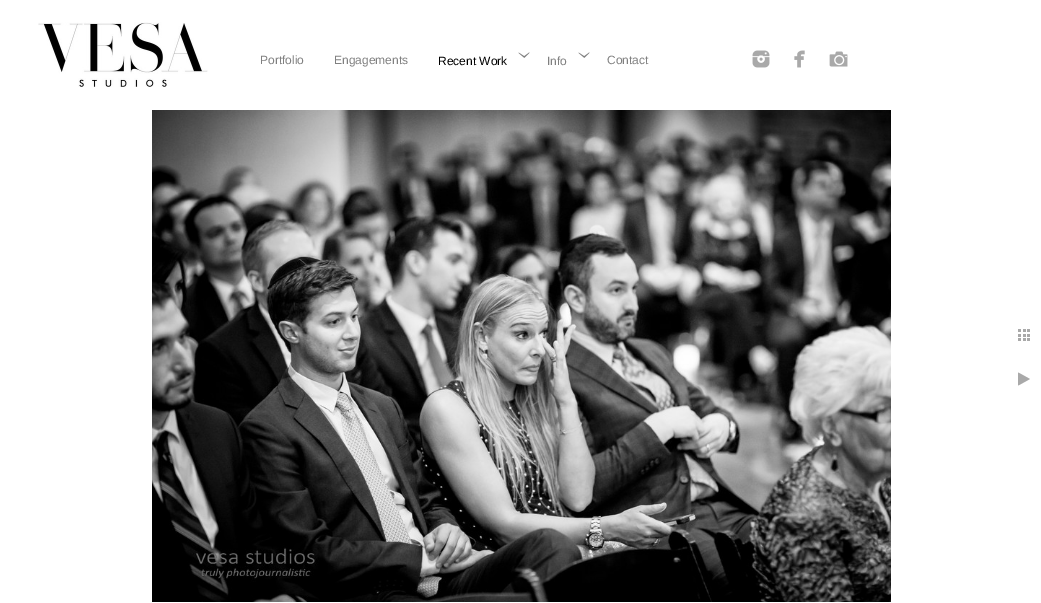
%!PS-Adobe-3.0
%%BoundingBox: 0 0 1041 603
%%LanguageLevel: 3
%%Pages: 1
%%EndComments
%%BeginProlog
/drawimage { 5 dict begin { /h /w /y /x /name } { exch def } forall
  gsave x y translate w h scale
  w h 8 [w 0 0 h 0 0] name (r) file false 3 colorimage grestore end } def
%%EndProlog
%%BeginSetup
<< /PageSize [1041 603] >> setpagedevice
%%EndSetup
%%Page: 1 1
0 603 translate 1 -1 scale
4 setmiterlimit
1 setgray
0 0 1041 603 rectfill
(images/1.raw) 38 22 170 65 drawimage
(images/2.raw) 518 52 12 6 drawimage
(images/2.raw) 578 52 12 6 drawimage
(images/3.raw) 752 50 18 18 drawimage
(images/4.raw) 794 50 11 18 drawimage
(images/5.raw) 829 51 19 16 drawimage
(images/6.raw) 152 110 739 492 drawimage
(images/7.raw) 1018 329 12 12 drawimage
(images/8.raw) 1018 372 12 14 drawimage
/LiberationSans-Regular [12 0 0 -12 0 0] selectfont
0.502 setgray
260 64 moveto (Portfolio) show
334 64 moveto (Engagements) show
0 setgray
438 65 moveto (Recent Work) show
0.502 setgray
547 65 moveto (Info) show
607 64 moveto (Contact) show
showpage
%%EOF
